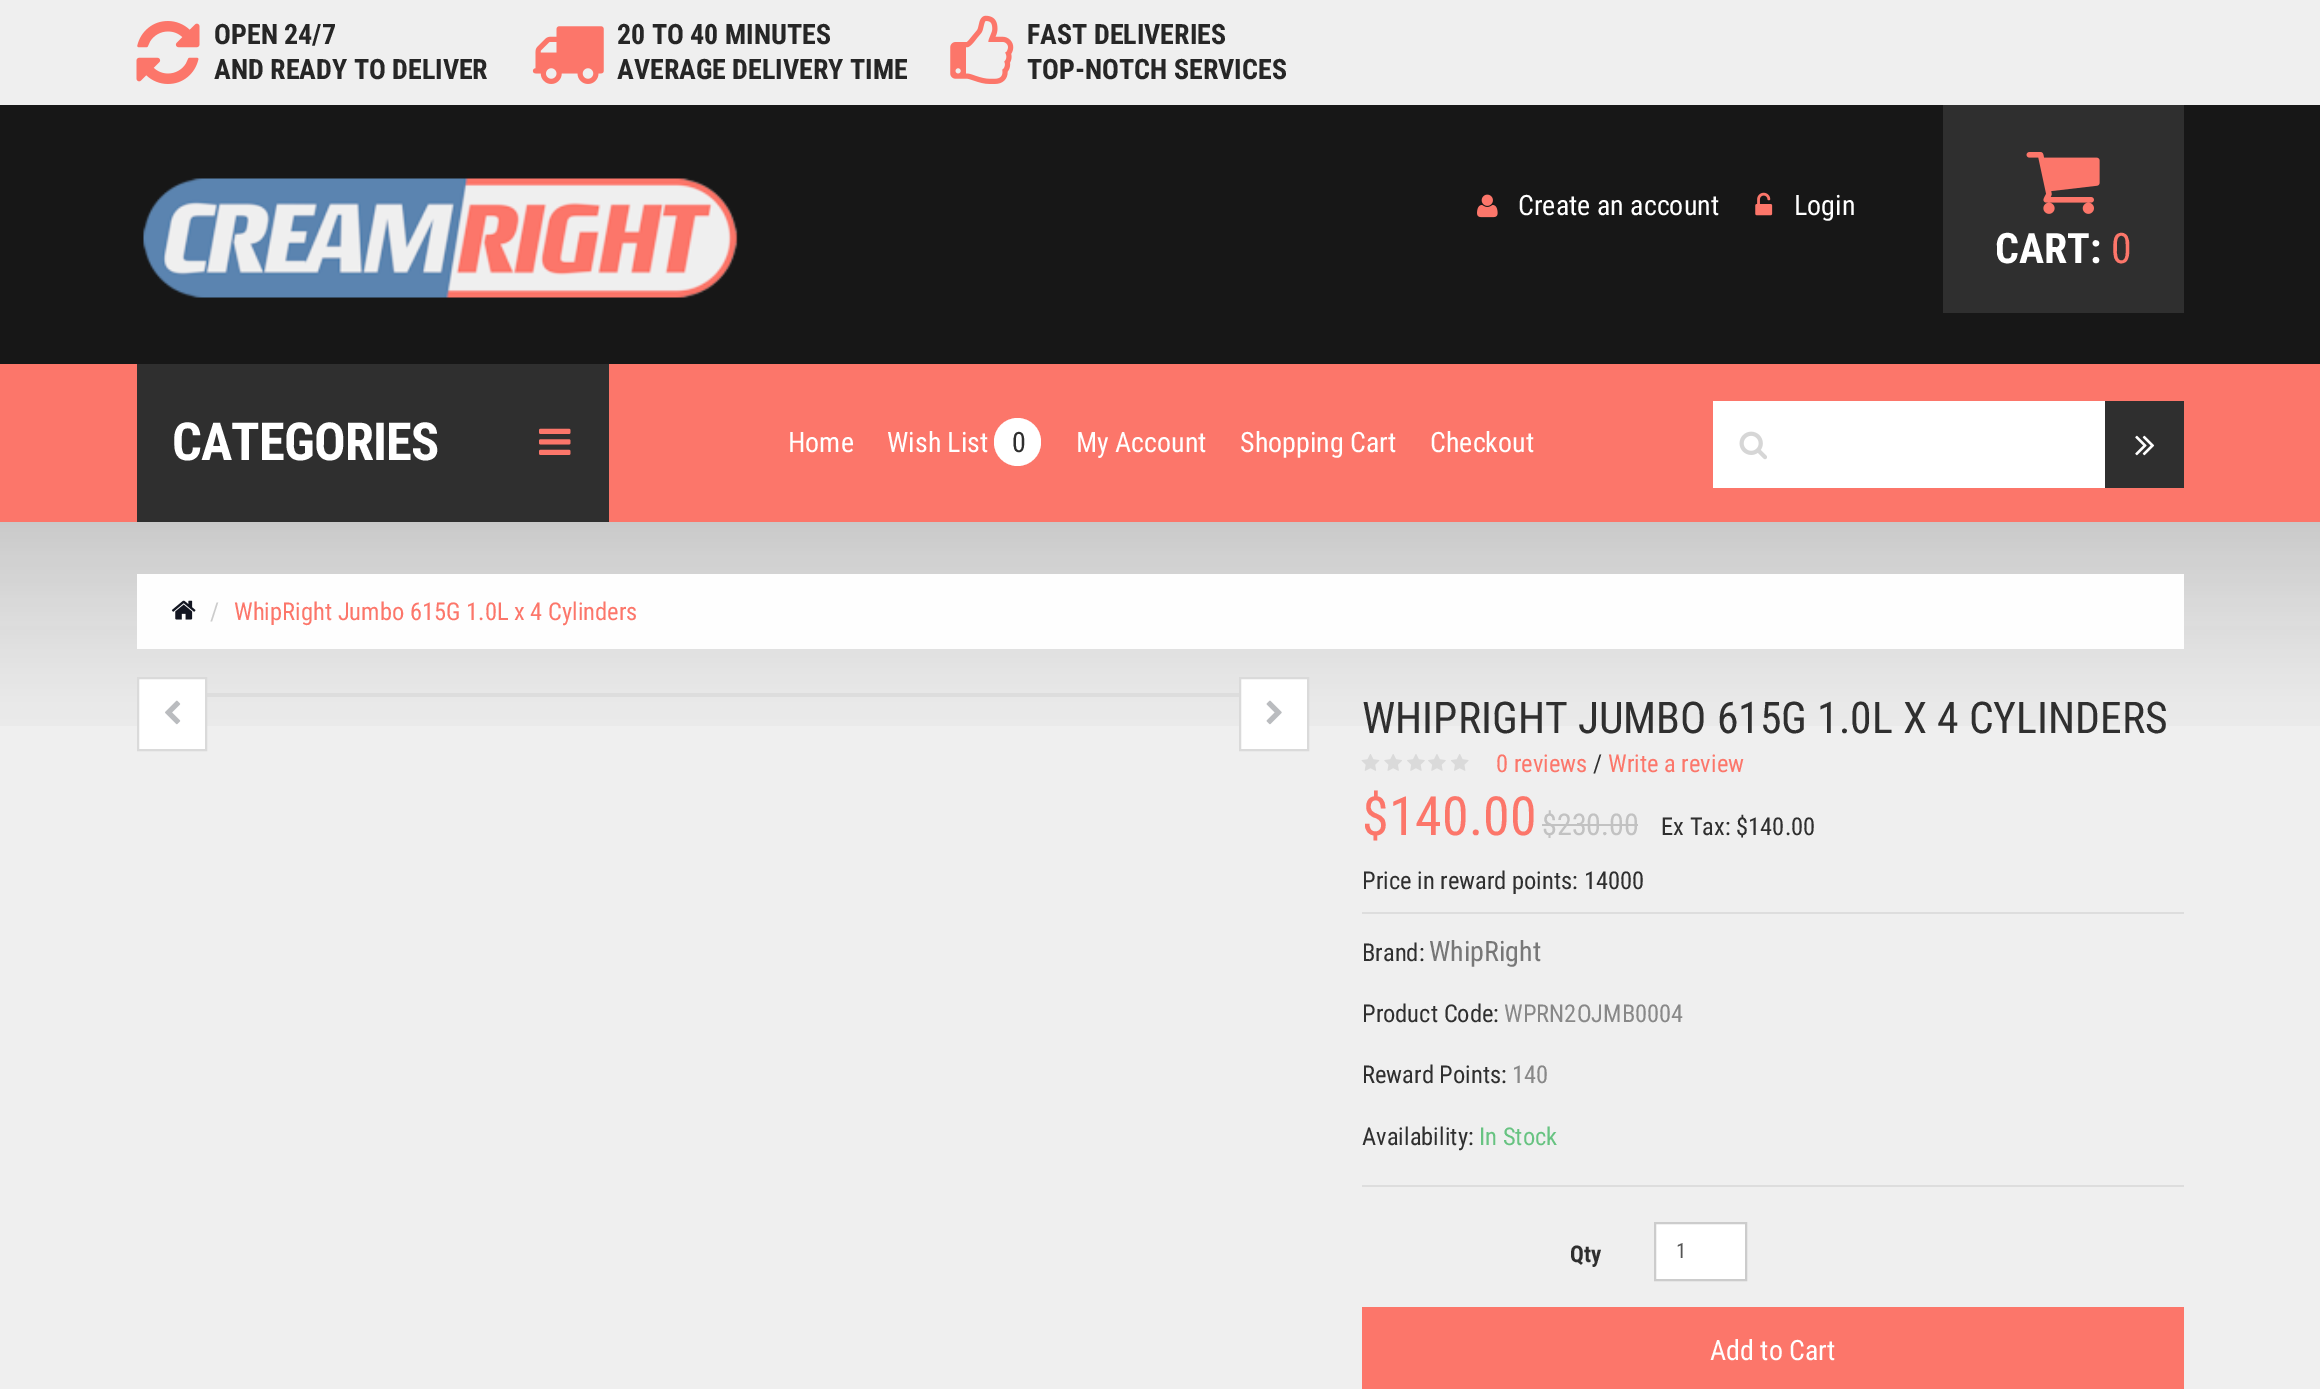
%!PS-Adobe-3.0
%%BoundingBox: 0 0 2320 1389
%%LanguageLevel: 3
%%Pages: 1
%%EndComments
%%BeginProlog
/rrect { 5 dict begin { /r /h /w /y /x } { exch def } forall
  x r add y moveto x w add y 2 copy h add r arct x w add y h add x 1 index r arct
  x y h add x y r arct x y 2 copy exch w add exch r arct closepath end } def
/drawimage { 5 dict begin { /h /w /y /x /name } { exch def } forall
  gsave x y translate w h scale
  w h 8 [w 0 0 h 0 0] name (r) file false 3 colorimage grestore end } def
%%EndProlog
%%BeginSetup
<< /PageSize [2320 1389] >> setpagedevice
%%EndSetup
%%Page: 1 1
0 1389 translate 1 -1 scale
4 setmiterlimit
0.937 setgray
0 0 2320 1389 rectfill
(images/1.raw) 0 522 2320 204 drawimage
(images/2.raw) 136 21 64 63 drawimage
(images/3.raw) 532 26 72 58 drawimage
(images/4.raw) 950 15 64 69 drawimage
0.09 setgray
0 105 2320 259 rectfill
(images/5.raw) 143 178 595 120 drawimage
(images/6.raw) 1477 194 21 24 drawimage
(images/7.raw) 1755 192 18 24 drawimage
0.184 setgray
1943 105 241 208 rectfill
(images/8.raw) 2026 152 74 62 drawimage
0.988 0.463 0.416 setrgbcolor
0 364 2320 158 rectfill
0.184 setgray
137 364 472 158 rectfill
(images/9.raw) 539 428 32 27 drawimage
1 setgray
994 418 47 48 23.5 rrect fill
1713 401 392 87 rectfill
(images/10.raw) 1739 431 28 29 drawimage
0.184 setgray
2105 401 79 87 rectfill
(images/11.raw) 2135 435 20 21 drawimage
0.996 setgray
137 574 2047 75 rectfill
(images/12.raw) 171 600 25 20 drawimage
0.867 setgray
207 693 1032 4 rectfill
1 setgray
newpath 138 678 moveto 206 678 lineto 206 750 lineto 138 750 lineto closepath gsave fill grestore
0.855 setgray
2 setlinewidth
stroke
(images/13.raw) 165 700 16 25 drawimage
1 setgray
newpath 1240 678 moveto 1308 678 lineto 1308 750 lineto 1240 750 lineto closepath gsave fill grestore
0.855 setgray
stroke
(images/14.raw) 1266 700 16 25 drawimage
(images/15.raw) 1361 754 19 17 drawimage
(images/16.raw) 1384 754 18 17 drawimage
(images/17.raw) 1407 754 18 17 drawimage
(images/17.raw) 1428 754 18 17 drawimage
(images/18.raw) 1451 754 18 17 drawimage
0.867 setgray
1362 912 822 2 rectfill
0.761 setgray
1542 824 96 2 rectfill
0.867 setgray
1362 1185 822 2 rectfill
1 setgray
newpath 1655 1223 moveto 1746 1223 lineto 1746 1280 lineto 1655 1280 lineto closepath gsave fill grestore
0.8 setgray
stroke
0.988 0.463 0.416 setrgbcolor
1362 1307 822 82 rectfill
/RobotoCondensed-Bold [28 0 0 -28 0 0] selectfont
0.149 setgray
214 44 moveto (OPEN 24/7) show
214 79 moveto (AND READY TO DELIVER) show
617 44 moveto (20 TO 40 MINUTES) show
617 79 moveto (AVERAGE DELIVERY TIME) show
1027 44 moveto (FAST DELIVERIES) show
1027 79 moveto (TOP-NOTCH SERVICES) show
/RobotoCondensed-Regular [28 0 0 -28 0 0] selectfont
1 setgray
1518 215 moveto (Create an account) show
1794 215 moveto (Login) show
/RobotoCondensed-Bold [42 0 0 -42 0 0] selectfont
1995 263 moveto (CART:) show
/RobotoCondensed-Regular [42 0 0 -42 0 0] selectfont
0.988 0.463 0.416 setrgbcolor
2111 263 moveto (0) show
/RobotoCondensed-Bold [52.5 0 0 -52.5 0 0] selectfont
1 setgray
172 460 moveto -0.9 0 (CATEGORIES) ashow
/RobotoCondensed-Regular [28 0 0 -28 0 0] selectfont
788 452 moveto (Home) show
887 452 moveto (Wish List) show
0.184 setgray
1012 452 moveto (0) show
1 setgray
1076 452 moveto (My Account) show
1240 452 moveto (Shopping Cart) show
1430 452 moveto (Checkout) show
/RobotoCondensed-Regular [24.5 0 0 -24.5 0 0] selectfont
0.8 setgray
210 620 moveto (/) show
0.988 0.463 0.416 setrgbcolor
234 620 moveto (WhipRight Jumbo 615G 1.0L x 4 Cylinders) show
/RobotoCondensed-Regular [43.75 0 0 -43.75 0 0] selectfont
0.184 setgray
1362 733 moveto (WHIPRIGHT JUMBO 615G 1.0L X 4 CYLINDERS) show
/RobotoCondensed-Regular [24.5 0 0 -24.5 0 0] selectfont
0.988 0.463 0.416 setrgbcolor
1496 772 moveto (0 reviews) show
0.184 setgray
1593 772 moveto (/) show
0.988 0.463 0.416 setrgbcolor
1608 772 moveto (Write a review) show
/RobotoCondensed-Regular [54 0 0 -54 0 0] selectfont
1362 835 moveto ($140.00) show
/RobotoCondensed-Regular [30 0 0 -30 0 0] selectfont
0.761 setgray
1542 835 moveto ($230.00) show
/RobotoCondensed-Regular [24.5 0 0 -24.5 0 0] selectfont
0.184 setgray
1661 835 moveto (Ex Tax: $140.00) show
1362 889 moveto (Price in reward points: 14000) show
1362 961 moveto (Brand:) show
/RobotoCondensed-Regular [28 0 0 -28 0 0] selectfont
0.467 setgray
1429 961 moveto (WhipRight) show
/RobotoCondensed-Regular [24.5 0 0 -24.5 0 0] selectfont
0.184 setgray
1362 1022 moveto (Product Code:) show
0.533 setgray
1504 1022 moveto (WPRN2OJMB0004) show
0.184 setgray
1362 1083 moveto (Reward Points:) show
0.533 setgray
1512 1083 moveto (140) show
0.184 setgray
1362 1145 moveto (Availability:) show
0.404 0.765 0.506 setrgbcolor
1479 1145 moveto (In Stock) show
/RobotoCondensed-Bold [23 0 0 -23 0 0] selectfont
0.184 setgray
1570 1262 moveto (Qty) show
/RobotoCondensed-Regular [21 0 0 -21 0 0] selectfont
0.333 setgray
1676 1258 moveto (1) show
/RobotoCondensed-Regular [28 0 0 -28 0 0] selectfont
1 setgray
1710 1360 moveto (Add to Cart) show
showpage
%%EOF
